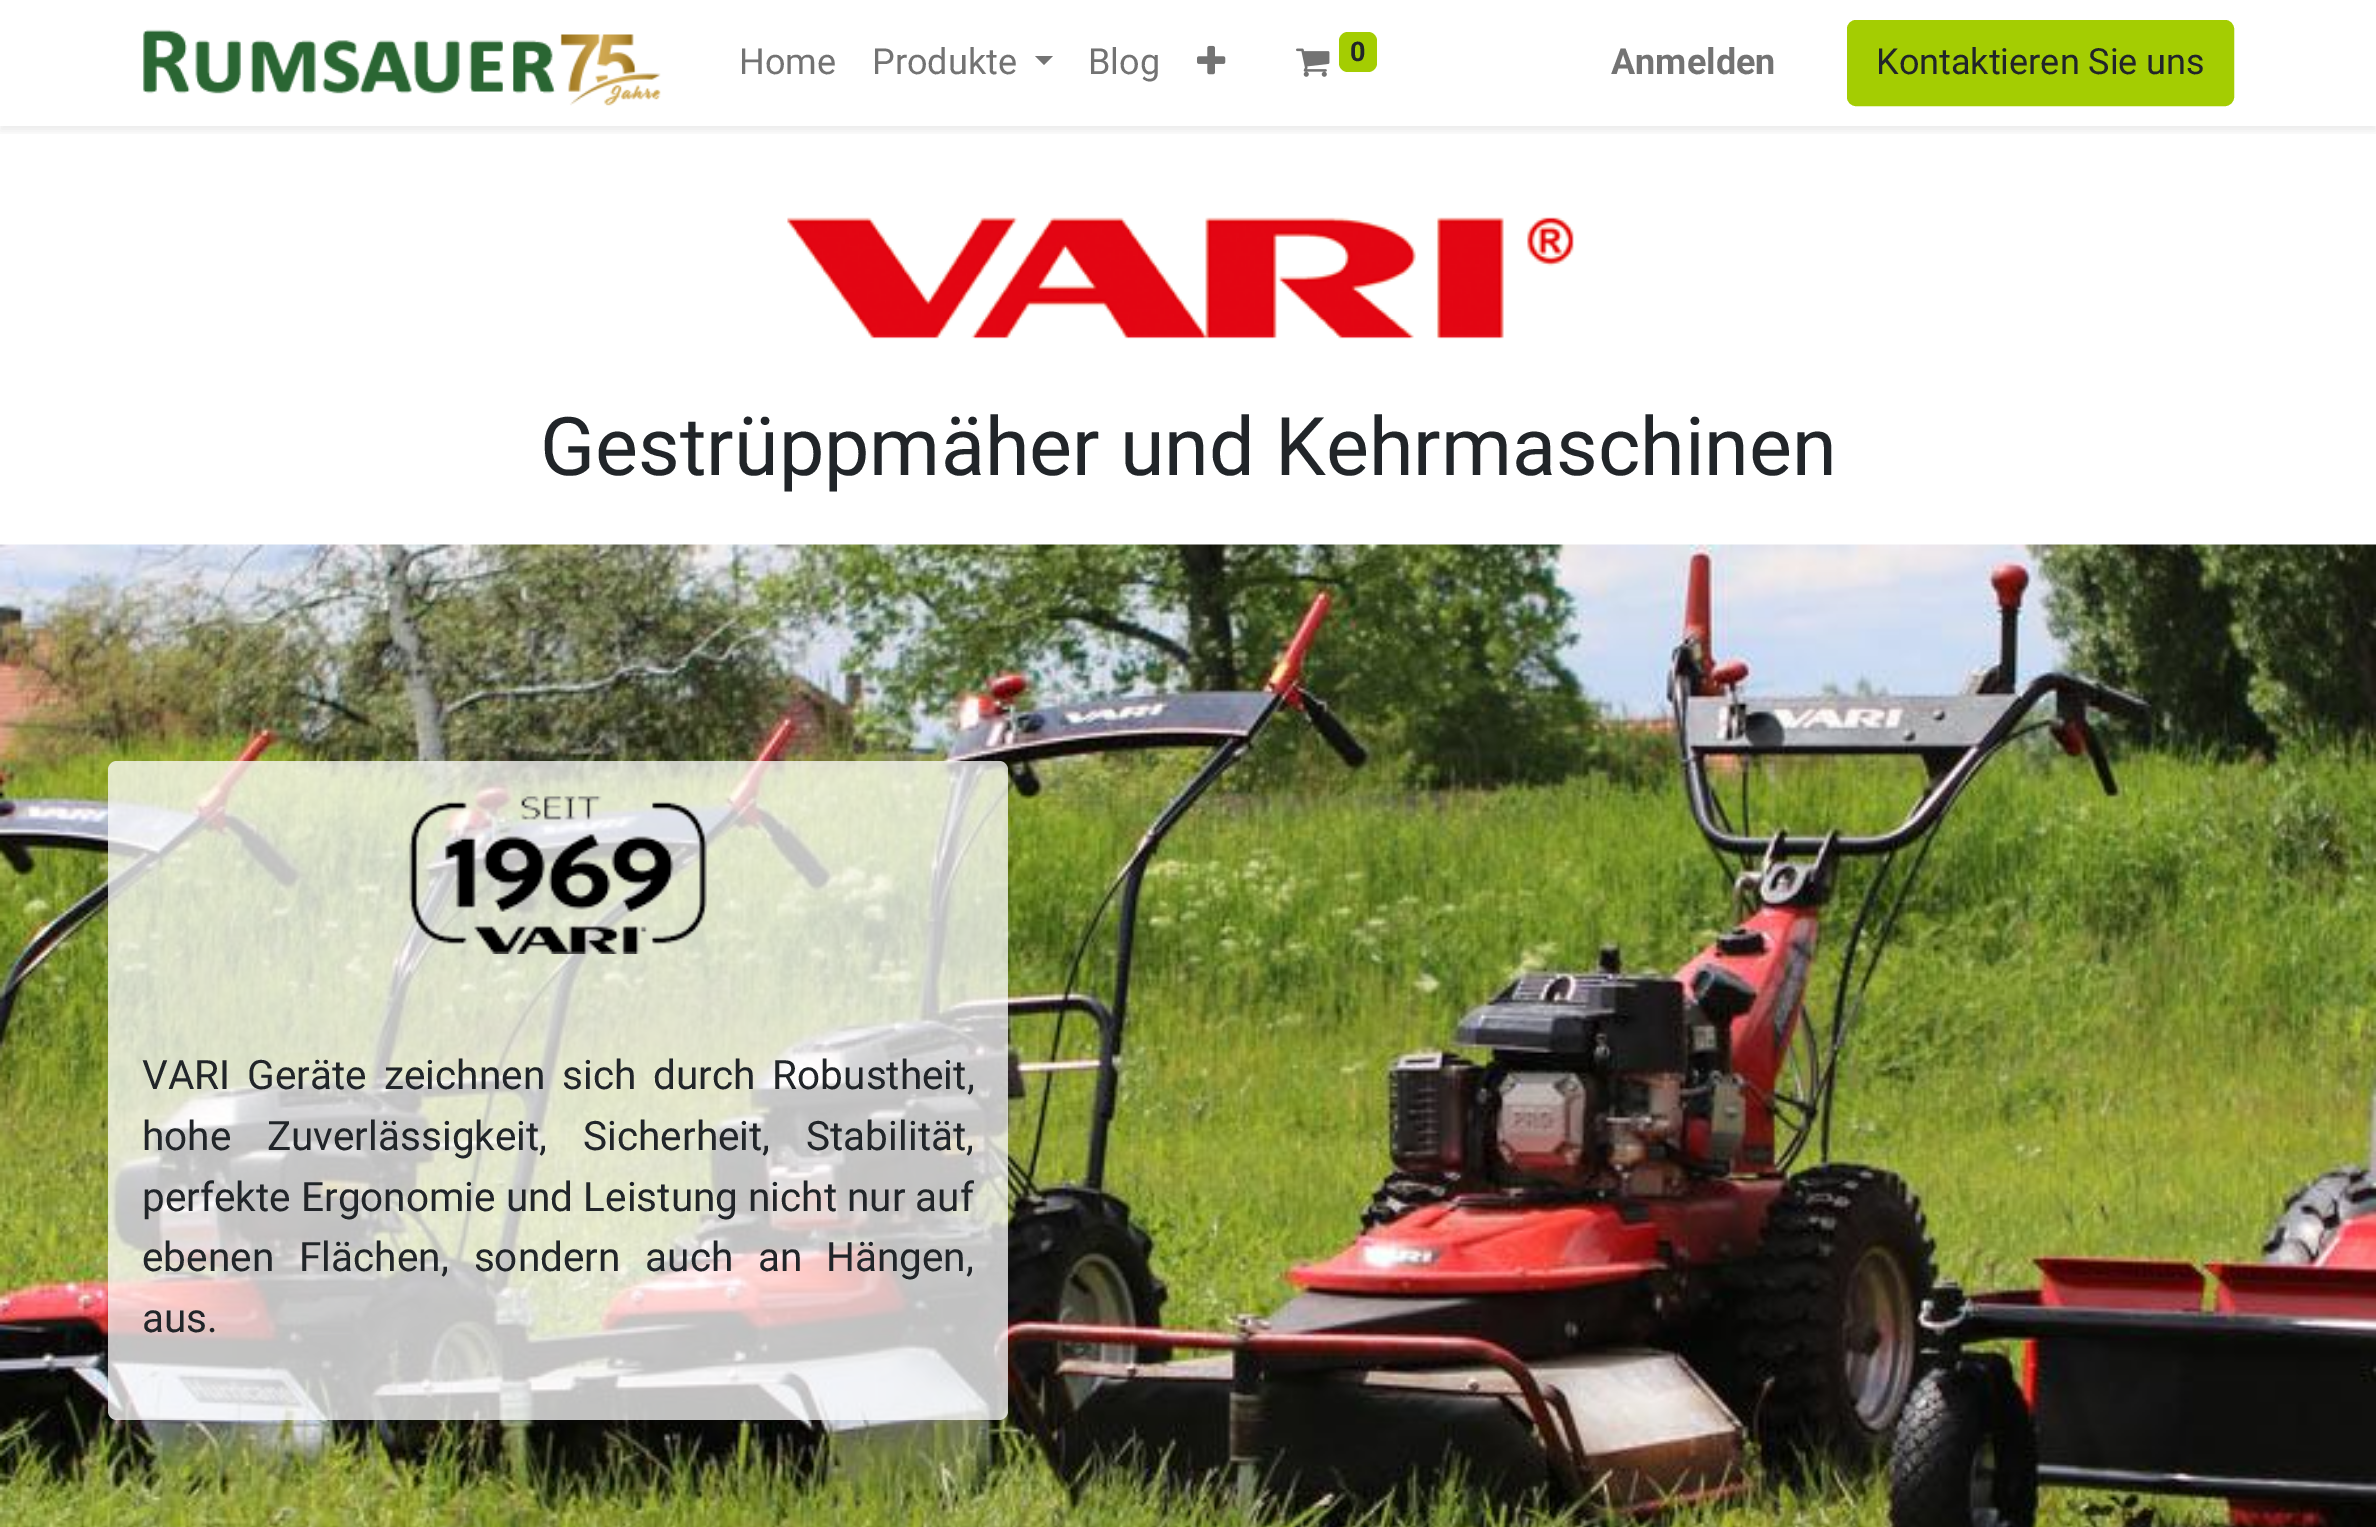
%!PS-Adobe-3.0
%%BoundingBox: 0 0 2376 1527
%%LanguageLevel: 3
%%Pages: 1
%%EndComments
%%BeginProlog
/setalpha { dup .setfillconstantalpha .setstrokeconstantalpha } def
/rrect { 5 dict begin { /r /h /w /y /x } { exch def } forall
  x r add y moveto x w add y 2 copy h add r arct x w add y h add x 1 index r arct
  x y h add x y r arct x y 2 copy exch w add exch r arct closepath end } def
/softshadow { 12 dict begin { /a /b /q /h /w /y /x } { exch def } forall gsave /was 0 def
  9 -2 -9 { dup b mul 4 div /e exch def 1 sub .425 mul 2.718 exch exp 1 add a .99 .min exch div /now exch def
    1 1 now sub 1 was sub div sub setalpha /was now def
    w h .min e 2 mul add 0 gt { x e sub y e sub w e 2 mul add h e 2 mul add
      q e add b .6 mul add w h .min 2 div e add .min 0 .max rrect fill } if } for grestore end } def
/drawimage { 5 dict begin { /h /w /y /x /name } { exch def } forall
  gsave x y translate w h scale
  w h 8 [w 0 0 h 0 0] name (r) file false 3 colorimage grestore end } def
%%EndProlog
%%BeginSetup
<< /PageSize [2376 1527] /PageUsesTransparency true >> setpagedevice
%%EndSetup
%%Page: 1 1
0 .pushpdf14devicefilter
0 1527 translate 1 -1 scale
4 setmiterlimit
1 setgray
0 0 2376 1527 rectfill
gsave
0 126 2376 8 rectclip
0 setgray
0 5 2376 126 0 4.5 0.07 softshadow
grestore
(images/1.raw) 143 29 518 77 drawimage
0.451 setgray
newpath 1035 56 moveto 1053 56 lineto 1044 65 lineto closepath fill
(images/2.raw) 1197 45 29 30 drawimage
(images/3.raw) 1296 48 34 29 drawimage
0.643 0.804 0.008 setrgbcolor
1339 32 38 40 9 rrect fill
1848 21 385 84 8 rrect gsave fill grestore
2 setlinewidth
stroke
(images/4.raw) 787 217 787 122 drawimage
(images/5.raw) 0 544 2376 983 drawimage
0.75 setalpha
1 setgray
108 761 900 659 9 rrect fill
1 setalpha
(images/6.raw) 409 796 298 158 drawimage
/Roboto-Regular [36 0 0 -36 0 0] selectfont
0.451 setgray
739 74 moveto (Home) show
872 74 moveto (Produkte) show
1088 74 moveto (Blog) show
/Roboto-Bold [27 0 0 -27 0 0] selectfont
0.129 0.145 0.161 setrgbcolor
1350 61 moveto (0) show
/Roboto-Bold [36 0 0 -36 0 0] selectfont
0.451 setgray
1611 74 moveto (Anmelden) show
/Roboto-Regular [36 0 0 -36 0 0] selectfont
0.129 0.145 0.161 setrgbcolor
1876 74 moveto (Kontaktieren Sie uns) show
/Roboto-Regular [81 0 0 -81 0 0] selectfont
540 475 moveto (Gestrüppmäher und Kehrmaschinen) show
/Roboto-Regular [40.5 0 0 -40.5 0 0] selectfont
142 1089 moveto 7 0 32 (VARI Geräte zeichnen sich) widthshow
653 1089 moveto 7 0 32 (durch Robustheit,) widthshow
142 1150 moveto 25.5 0 32 (hohe Zuverlässigkeit, Sicherheit, Stabilität,) widthshow
142 1211 moveto (perfekte Ergonomie und Leistung nicht nur auf) show
142 1271 moveto 15 0 32 (ebenen Flächen, sondern auch an) widthshow
826 1271 moveto (Hängen,) show
142 1332 moveto (aus.) show
.poppdf14devicefilter showpage
%%EOF
